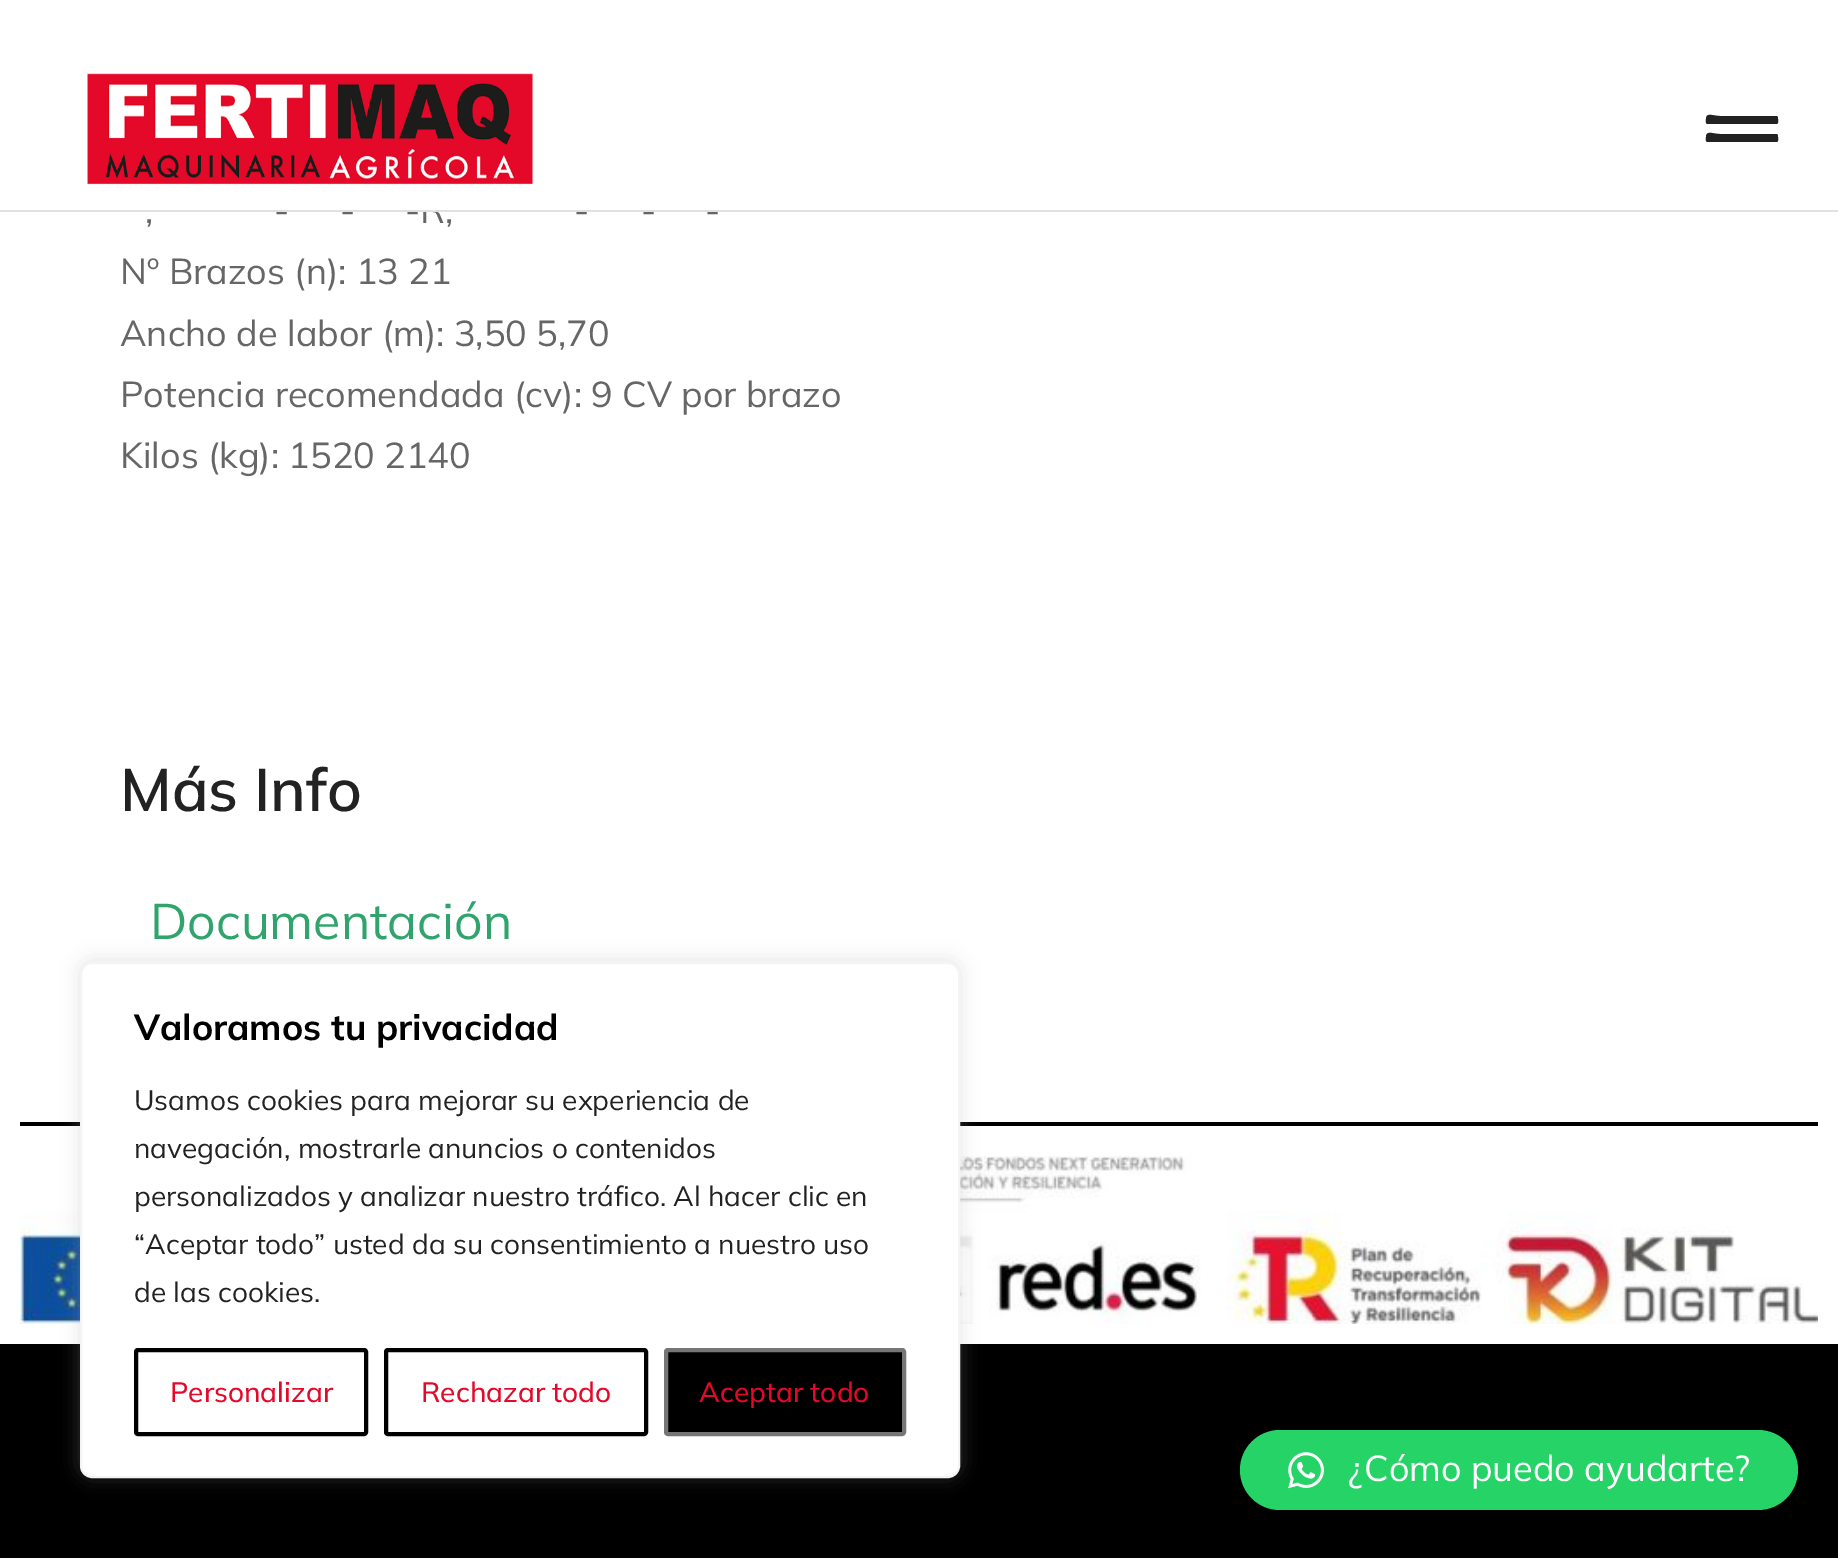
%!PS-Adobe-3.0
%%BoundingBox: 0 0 1838 1558
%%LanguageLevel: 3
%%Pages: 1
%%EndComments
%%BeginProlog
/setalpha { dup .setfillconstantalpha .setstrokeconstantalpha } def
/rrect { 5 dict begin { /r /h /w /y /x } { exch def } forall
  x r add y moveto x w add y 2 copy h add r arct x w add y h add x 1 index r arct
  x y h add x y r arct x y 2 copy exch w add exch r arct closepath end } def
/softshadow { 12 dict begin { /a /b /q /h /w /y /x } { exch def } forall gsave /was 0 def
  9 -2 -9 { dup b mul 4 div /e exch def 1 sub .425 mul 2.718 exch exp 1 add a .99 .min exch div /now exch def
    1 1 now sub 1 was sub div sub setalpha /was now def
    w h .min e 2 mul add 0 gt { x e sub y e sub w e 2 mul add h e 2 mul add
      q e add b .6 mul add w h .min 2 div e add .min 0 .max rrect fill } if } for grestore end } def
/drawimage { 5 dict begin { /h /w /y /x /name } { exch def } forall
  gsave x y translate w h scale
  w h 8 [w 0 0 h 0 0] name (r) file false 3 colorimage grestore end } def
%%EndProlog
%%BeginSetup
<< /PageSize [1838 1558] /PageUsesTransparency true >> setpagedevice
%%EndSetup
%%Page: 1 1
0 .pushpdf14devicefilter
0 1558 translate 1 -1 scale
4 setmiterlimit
1 setgray
0 0 1838 1558 rectfill
(images/1.raw) 87 73 446 112 drawimage
0.133 setgray
newpath 1776 134 moveto 1778 134 1778 136 1778 137 curveto 1778 139 1779 142 1776 142 curveto 1708 142 lineto 1705 142 1706 139 1706 137 curveto 1706 130 1713 134 1720 134 curveto closepath 1776 116 moveto 1778 116 1778 118 1778 119 curveto 1778 121 1779 124 1776 124 curveto 1708 124 lineto 1705 124 1706 121 1706 119 curveto 1706 112 1713 116 1720 116 curveto closepath fill
0 setgray
20 1122 1798 4 rectfill
(images/2.raw) 20 1156 1798 168 drawimage
0 1344 1838 214 rectfill
0.675 0.671 0.671 setrgbcolor
80 960 880 516 12 10 0.3 softshadow
1 setgray
81 963 878 514 11 rrect gsave fill grestore
0.957 setgray
2 setlinewidth
stroke
0 setgray
4 setlinewidth
136 1350 230 84 2 rrect stroke
386 1350 260 84 2 rrect stroke
666 1350 238 84 2 rrect gsave fill grestore
0.463 setgray
stroke
0.145 0.827 0.4 setrgbcolor
1240 1430 558 80 40 rrect fill
(images/3.raw) 1288 1452 36 37 drawimage
/Mulish-Regular [36 0 0 -36 0 0] selectfont
0.4 setgray
274 223 moveto (-) show
340 223 moveto (-) show
405 223 moveto (-R,) show
1 setgray
423 197 20 13 rectfill
0.4 setgray
574 223 moveto (-) show
641 223 moveto (-) show
705 223 moveto (-) show
0.878 setgray
0 210 1838 2 rectfill
0.4 setgray
145 223 moveto (,) show
120 284 moveto (Nº Brazos \(n\): 13 21) show
120 346 moveto (Ancho de labor \(m\): 3,50 5,70) show
120 407 moveto (Potencia recomendada \(cv\): 9 CV por brazo) show
120 468 moveto (Kilos \(kg\): 1520 2140) show
/Mulish-SemiBold [60 0 0 -60 0 0] selectfont
0.133 setgray
120 811 moveto (Más Info) show
/Mulish-Regular [50 0 0 -50 0 0] selectfont
0.188 0.643 0.424 setrgbcolor
150 939 moveto (Documentación) show
/Mulish-Bold [36 0 0 -36 0 0] selectfont
0 setgray
134 1040 moveto (Valoramos tu privacidad) show
/Mulish-Regular [28 0 0 -28 0 0] selectfont
0.133 setgray
134 1110 moveto (Usamos cookies para mejorar su experiencia de) show
134 1158 moveto (navegación, mostrarle anuncios o contenidos) show
134 1206 moveto (personalizados y analizar nuestro tráfico. Al hacer clic en) show
134 1254 moveto (“Aceptar todo” usted da su consentimiento a nuestro uso) show
134 1302 moveto (de las cookies.) show
/Mulish-Medium [28 0 0 -28 0 0] selectfont
0.894 0.031 0.161 setrgbcolor
170 1402 moveto (Personalizar) show
421 1402 moveto (Rechazar todo) show
699 1402 moveto (Aceptar todo) show
/Mulish-Regular [36 0 0 -36 0 0] selectfont
1 setgray
1348 1481 moveto (¿Cómo puedo ayudarte?) show
.poppdf14devicefilter showpage
%%EOF
